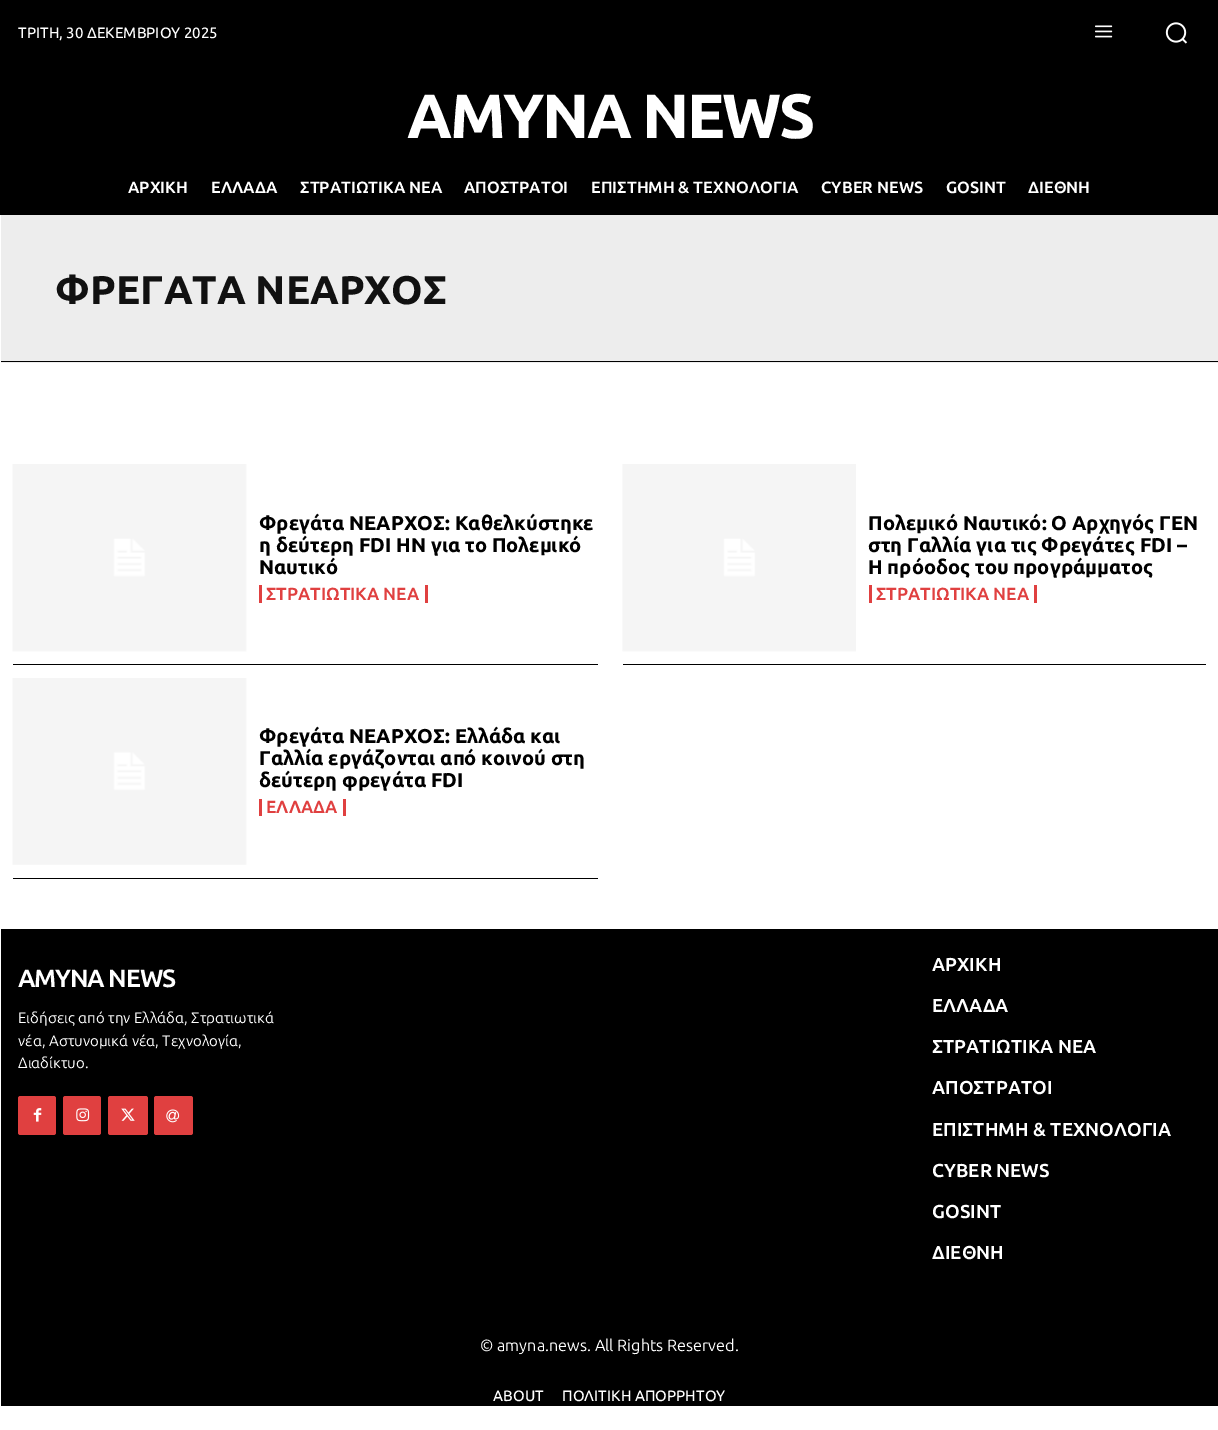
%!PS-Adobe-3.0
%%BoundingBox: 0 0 1218 1430
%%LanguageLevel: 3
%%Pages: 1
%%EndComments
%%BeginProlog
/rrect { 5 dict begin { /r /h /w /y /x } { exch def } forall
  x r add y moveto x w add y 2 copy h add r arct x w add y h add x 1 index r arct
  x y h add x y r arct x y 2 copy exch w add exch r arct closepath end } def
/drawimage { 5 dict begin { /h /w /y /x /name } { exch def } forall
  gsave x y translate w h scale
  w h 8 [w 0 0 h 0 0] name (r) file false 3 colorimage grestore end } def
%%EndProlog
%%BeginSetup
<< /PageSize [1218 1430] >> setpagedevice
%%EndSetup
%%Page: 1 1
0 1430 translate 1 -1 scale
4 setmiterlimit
1 setgray
0 0 1218 1430 rectfill
0 setgray
0 0 1218 215 rectfill
(images/1.raw) 1095 25 18 13 drawimage
(images/2.raw) 1165 22 23 22 drawimage
0.929 setgray
1 215 1217 148 rectfill
0 setgray
1 361 1217 1 rectfill
13 664 585 1 rectfill
(images/3.raw) 12 464 235 188 drawimage
0.878 0.251 0.251 setrgbcolor
425 585 3 18 rectfill
259 585 3 18 rectfill
0 setgray
623 664 583 1 rectfill
(images/4.raw) 622 464 234 188 drawimage
0.878 0.251 0.251 setrgbcolor
1034 585 3 18 rectfill
869 585 3 18 rectfill
0 setgray
13 878 585 1 rectfill
(images/5.raw) 12 678 235 187 drawimage
0.878 0.251 0.251 setrgbcolor
343 799 3 17 rectfill
259 799 3 17 rectfill
0 setgray
1 929 1217 477 rectfill
0.878 0.251 0.251 setrgbcolor
18 1096 38 39 2.5 rrect fill
(images/6.raw) 33 1108 9 14 drawimage
63 1096 38 39 2.5 rrect fill
(images/7.raw) 76 1108 14 14 drawimage
108 1096 40 39 2.5 rrect fill
(images/8.raw) 121 1108 14 13 drawimage
154 1096 39 39 2.5 rrect fill
(images/9.raw) 166 1109 14 14 drawimage
/Ubuntu-Medium [15 0 0 -15 0 0] selectfont
1 setgray
18 38 moveto (ΤΡΙΤΗ, 30 ΔΕΚΕΜΒΡΙΟΥ 2025) show
/Ubuntu-ExtraBold [62.5 0 0 -62.5 0 0] selectfont
407 138 moveto -2.5 0 (AMYNA NEWS) ashow
/Ubuntu-Bold [16.25 0 0 -16.25 0 0] selectfont
128 193 moveto (ΑΡΧΙΚΗ) show
211 193 moveto (ΕΛΛΑΔΑ) show
300 193 moveto (ΣΤΡΑΤΙΩΤΙΚΑ ΝΕΑ) show
464 193 moveto (ΑΠΟΣΤΡΑΤΟΙ) show
591 193 moveto (ΕΠΙΣΤΗΜΗ & ΤΕΧΝΟΛΟΓΙΑ) show
821 193 moveto (CYBER NEWS) show
946 193 moveto (GOSINT) show
1028 193 moveto (ΔΙΕΘΝΗ) show
/Ubuntu-ExtraBold [40 0 0 -40 0 0] selectfont
0.067 setgray
55 304 moveto (ΦΡΕΓΑΤΑ ΝΕΑΡΧΟΣ) show
/Ubuntu-ExtraBold [20 0 0 -20 0 0] selectfont
0 setgray
259 530 moveto (Φρεγάτα ΝΕΑΡΧΟΣ: Καθελκύστηκε) show
259 552 moveto (η δεύτερη FDI ΗΝ για το Πολεμικό) show
259 574 moveto (Ναυτικό) show
/Ubuntu-Bold [17.5 0 0 -17.5 0 0] selectfont
0.878 0.251 0.251 setrgbcolor
266 600 moveto (ΣΤΡΑΤΙΩΤΙΚΑ ΝΕΑ) show
/Ubuntu-ExtraBold [20 0 0 -20 0 0] selectfont
0 setgray
868 530 moveto (Πολεμικό Ναυτικό: Ο Αρχηγός ΓΕΝ) show
868 552 moveto (στη Γαλλία για τις Φρεγάτες FDI –) show
868 574 moveto (Η πρόοδος του προγράμματος) show
/Ubuntu-Bold [17.5 0 0 -17.5 0 0] selectfont
0.878 0.251 0.251 setrgbcolor
876 600 moveto (ΣΤΡΑΤΙΩΤΙΚΑ ΝΕΑ) show
/Ubuntu-ExtraBold [20 0 0 -20 0 0] selectfont
0 setgray
259 743 moveto (Φρεγάτα ΝΕΑΡΧΟΣ: Ελλάδα και) show
259 765 moveto (Γαλλία εργάζονται από κοινού στη) show
259 787 moveto (δεύτερη φρεγάτα FDI) show
/Ubuntu-Bold [17.5 0 0 -17.5 0 0] selectfont
0.878 0.251 0.251 setrgbcolor
266 813 moveto (ΕΛΛΑΔΑ) show
/Ubuntu-Bold [25 0 0 -25 0 0] selectfont
1 setgray
18 987 moveto -1.25 0 (AMYNA NEWS) ashow
/Ubuntu-Regular [15 0 0 -15 0 0] selectfont
18 1023 moveto (Ειδήσεις από την Ελλάδα, Στρατιωτικά) show
18 1046 moveto (νέα, Αστυνομικά νέα, Τεχνολογία,) show
18 1068 moveto (Διαδίκτυο.) show
/Ubuntu-Bold [18.75 0 0 -18.75 0 0] selectfont
932 971 moveto (ΑΡΧΙΚΗ) show
932 1012 moveto (ΕΛΛΑΔΑ) show
932 1053 moveto (ΣΤΡΑΤΙΩΤΙΚΑ ΝΕΑ) show
932 1094 moveto (ΑΠΟΣΤΡΑΤΟΙ) show
932 1136 moveto (ΕΠΙΣΤΗΜΗ & ΤΕΧΝΟΛΟΓΙΑ) show
932 1177 moveto (CYBER NEWS) show
932 1218 moveto (GOSINT) show
932 1259 moveto (ΔΙΕΘΝΗ) show
/Ubuntu-Regular [16.25 0 0 -16.25 0 0] selectfont
480 1351 moveto (© amyna.news. All Rights Reserved.) show
/Ubuntu-Medium [15 0 0 -15 0 0] selectfont
493 1401 moveto (ABOUT) show
562 1401 moveto (ΠΟΛΙΤΙΚΗ ΑΠΟΡΡΗΤΟΥ) show
showpage
%%EOF
